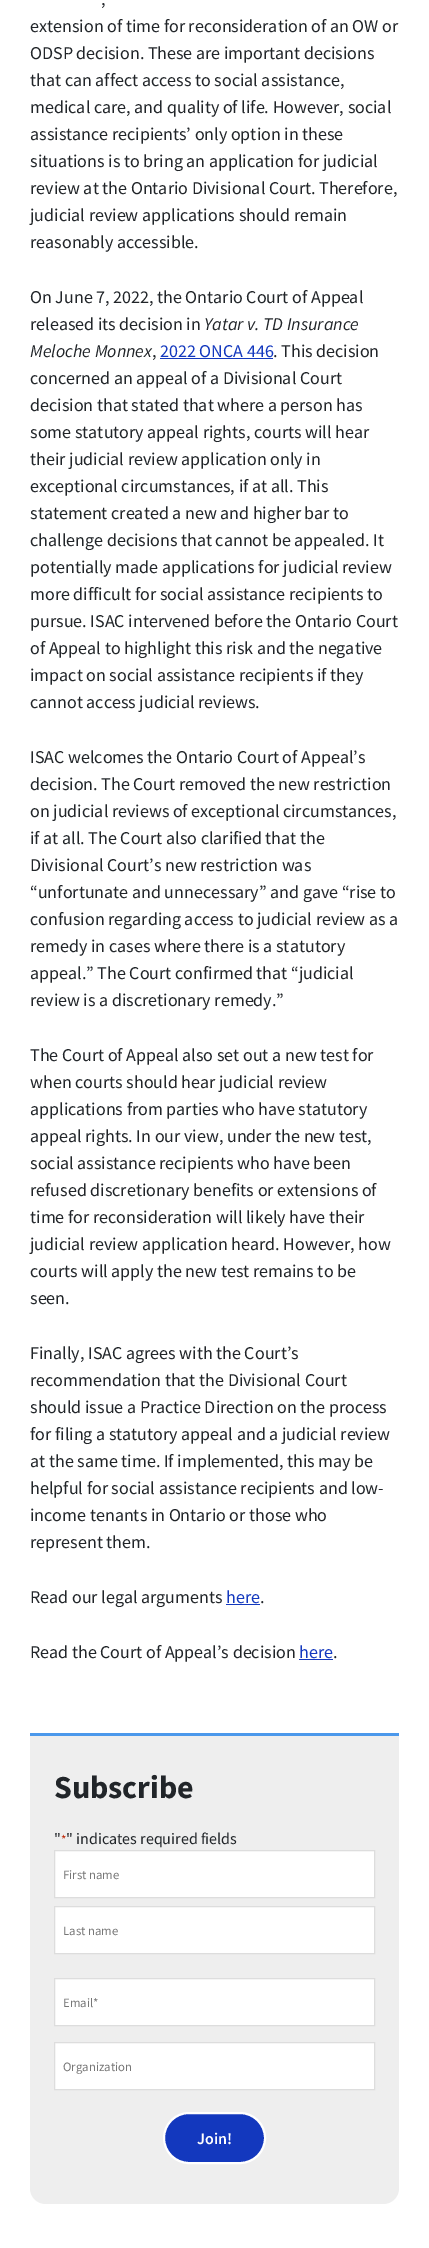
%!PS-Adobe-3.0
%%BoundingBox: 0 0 429 2248
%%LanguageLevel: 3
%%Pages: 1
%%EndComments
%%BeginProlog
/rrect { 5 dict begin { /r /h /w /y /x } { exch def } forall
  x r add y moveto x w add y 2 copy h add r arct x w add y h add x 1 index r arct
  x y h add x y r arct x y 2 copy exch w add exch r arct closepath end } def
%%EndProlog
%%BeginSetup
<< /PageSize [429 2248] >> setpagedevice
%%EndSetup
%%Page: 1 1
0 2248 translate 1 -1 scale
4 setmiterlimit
1 setgray
0 0 429 2248 rectfill
0.075 0.22 0.745 setrgbcolor
160 358 113 1 rectfill
226 1604 34 1 rectfill
299 1659 34 1 rectfill
0.933 setgray
newpath 30 1733 moveto 399 1733 lineto 399 2188 lineto 399 2197 392 2204 383 2204 curveto 46 2204 lineto 37 2204 30 2197 30 2188 curveto closepath fill
0.294 0.596 0.922 setrgbcolor
30 1733 369 3 rectfill
1 setgray
newpath 54.5 1850.5 moveto 374.5 1850.5 lineto 374.5 1897.5 lineto 54.5 1897.5 lineto closepath gsave fill grestore
0.867 setgray
stroke
1 setgray
newpath 54.5 1906.5 moveto 374.5 1906.5 lineto 374.5 1953.5 lineto 54.5 1953.5 lineto closepath gsave fill grestore
0.867 setgray
stroke
1 setgray
newpath 54.5 1978.5 moveto 374.5 1978.5 lineto 374.5 2025.5 lineto 54.5 2025.5 lineto closepath gsave fill grestore
0.867 setgray
stroke
1 setgray
newpath 54.5 2042.5 moveto 374.5 2042.5 lineto 374.5 2089.5 lineto 54.5 2089.5 lineto closepath gsave fill grestore
0.867 setgray
stroke
0.075 0.22 0.745 setrgbcolor
164 2113 101 50 25 rrect gsave fill grestore
1 setgray
2 setlinewidth
stroke
/SourceSansPro-Regular [18 0 0 -18 0 0] selectfont
0.129 0.145 0.161 setrgbcolor
101 5 moveto (,) show
30 32 moveto (extension of time for reconsideration of an OW or) show
30 59 moveto (ODSP decision. These are important decisions) show
30 86 moveto (that can affect access to social assistance,) show
30 113 moveto (medical care, and quality of life. However, social) show
30 140 moveto (assistance recipients’ only option in these) show
30 167 moveto (situations is to bring an application for judicial) show
30 194 moveto (review at the Ontario Divisional Court. Therefore,) show
30 221 moveto (judicial review applications should remain) show
30 248 moveto (reasonably accessible.) show
30 303 moveto (On June 7, 2022, the Ontario Court of Appeal) show
30 330 moveto (released its decision in) show
/SourceSansPro-Italic [18 0 0 -18 0 0] selectfont
204 330 moveto (Yatar v. TD Insurance) show
30 357 moveto (Meloche Monnex) show
/SourceSansPro-Regular [18 0 0 -18 0 0] selectfont
152 357 moveto (,) show
0.075 0.22 0.745 setrgbcolor
160 357 moveto (2022 ONCA 446) show
0.129 0.145 0.161 setrgbcolor
273 357 moveto (. This decision) show
30 384 moveto (concerned an appeal of a Divisional Court) show
30 411 moveto (decision that stated that where a person has) show
30 438 moveto (some statutory appeal rights, courts will hear) show
30 465 moveto (their judicial review application only in) show
30 492 moveto (exceptional circumstances, if at all. This) show
30 519 moveto (statement created a new and higher bar to) show
30 546 moveto (challenge decisions that cannot be appealed. It) show
30 573 moveto (potentially made applications for judicial review) show
30 600 moveto (more difficult for social assistance recipients to) show
30 627 moveto (pursue. ISAC intervened before the Ontario Court) show
30 654 moveto (of Appeal to highlight this risk and the negative) show
30 681 moveto (impact on social assistance recipients if they) show
30 708 moveto (cannot access judicial reviews.) show
30 763 moveto (ISAC welcomes the Ontario Court of Appeal’s) show
30 790 moveto (decision. The Court removed the new restriction) show
30 817 moveto (on judicial reviews of exceptional circumstances,) show
30 844 moveto (if at all. The Court also clarified that the) show
30 871 moveto (Divisional Court’s new restriction was) show
30 898 moveto (“unfortunate and unnecessary” and gave “rise to) show
30 925 moveto (confusion regarding access to judicial review as a) show
30 952 moveto (remedy in cases where there is a statutory) show
30 979 moveto (appeal.” The Court confirmed that “judicial) show
30 1006 moveto (review is a discretionary remedy.”) show
30 1061 moveto (The Court of Appeal also set out a new test for) show
30 1088 moveto (when courts should hear judicial review) show
30 1115 moveto (applications from parties who have statutory) show
30 1142 moveto (appeal rights. In our view, under the new test,) show
30 1169 moveto (social assistance recipients who have been) show
30 1196 moveto (refused discretionary benefits or extensions of) show
30 1223 moveto (time for reconsideration will likely have their) show
30 1250 moveto (judicial review application heard. However, how) show
30 1277 moveto (courts will apply the new test remains to be) show
30 1304 moveto (seen.) show
30 1359 moveto (Finally, ISAC agrees with the Court’s) show
30 1386 moveto (recommendation that the Divisional Court) show
30 1413 moveto (should issue a Practice Direction on the process) show
30 1440 moveto (for filing a statutory appeal and a judicial review) show
30 1467 moveto (at the same time. If implemented, this may be) show
30 1494 moveto (helpful for social assistance recipients and low-) show
30 1521 moveto (income tenants in Ontario or those who) show
30 1548 moveto (represent them.) show
30 1603 moveto (Read our legal arguments) show
0.075 0.22 0.745 setrgbcolor
226 1603 moveto (here) show
0.129 0.145 0.161 setrgbcolor
260 1603 moveto (.) show
30 1658 moveto (Read the Court of Appeal’s decision) show
0.075 0.22 0.745 setrgbcolor
299 1658 moveto (here) show
0.129 0.145 0.161 setrgbcolor
333 1658 moveto (.) show
/SourceSansPro-Bold [32 0 0 -32 0 0] selectfont
54 1798 moveto (Subscribe) show
/SourceSansPro-Regular [16 0 0 -16 0 0] selectfont
54 1844 moveto (") show
/SourceSansPro-Regular [13 0 0 -13 0 0] selectfont
0.753 0.169 0.039 setrgbcolor
61 1844 moveto (*) show
/SourceSansPro-Regular [16 0 0 -16 0 0] selectfont
0.129 0.145 0.161 setrgbcolor
66 1844 moveto (" indicates required fields) show
/SourceSansPro-Regular [12.75 0 0 -12.75 0 0] selectfont
0.467 setgray
63 1879 moveto (First name) show
63 1935 moveto (Last name) show
63 2007 moveto (Email*) show
63 2071 moveto (Organization) show
/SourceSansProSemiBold-SemiBold [16 0 0 -16 0 0] selectfont
1 setgray
197 2144 moveto (Join!) show
showpage
%%EOF
